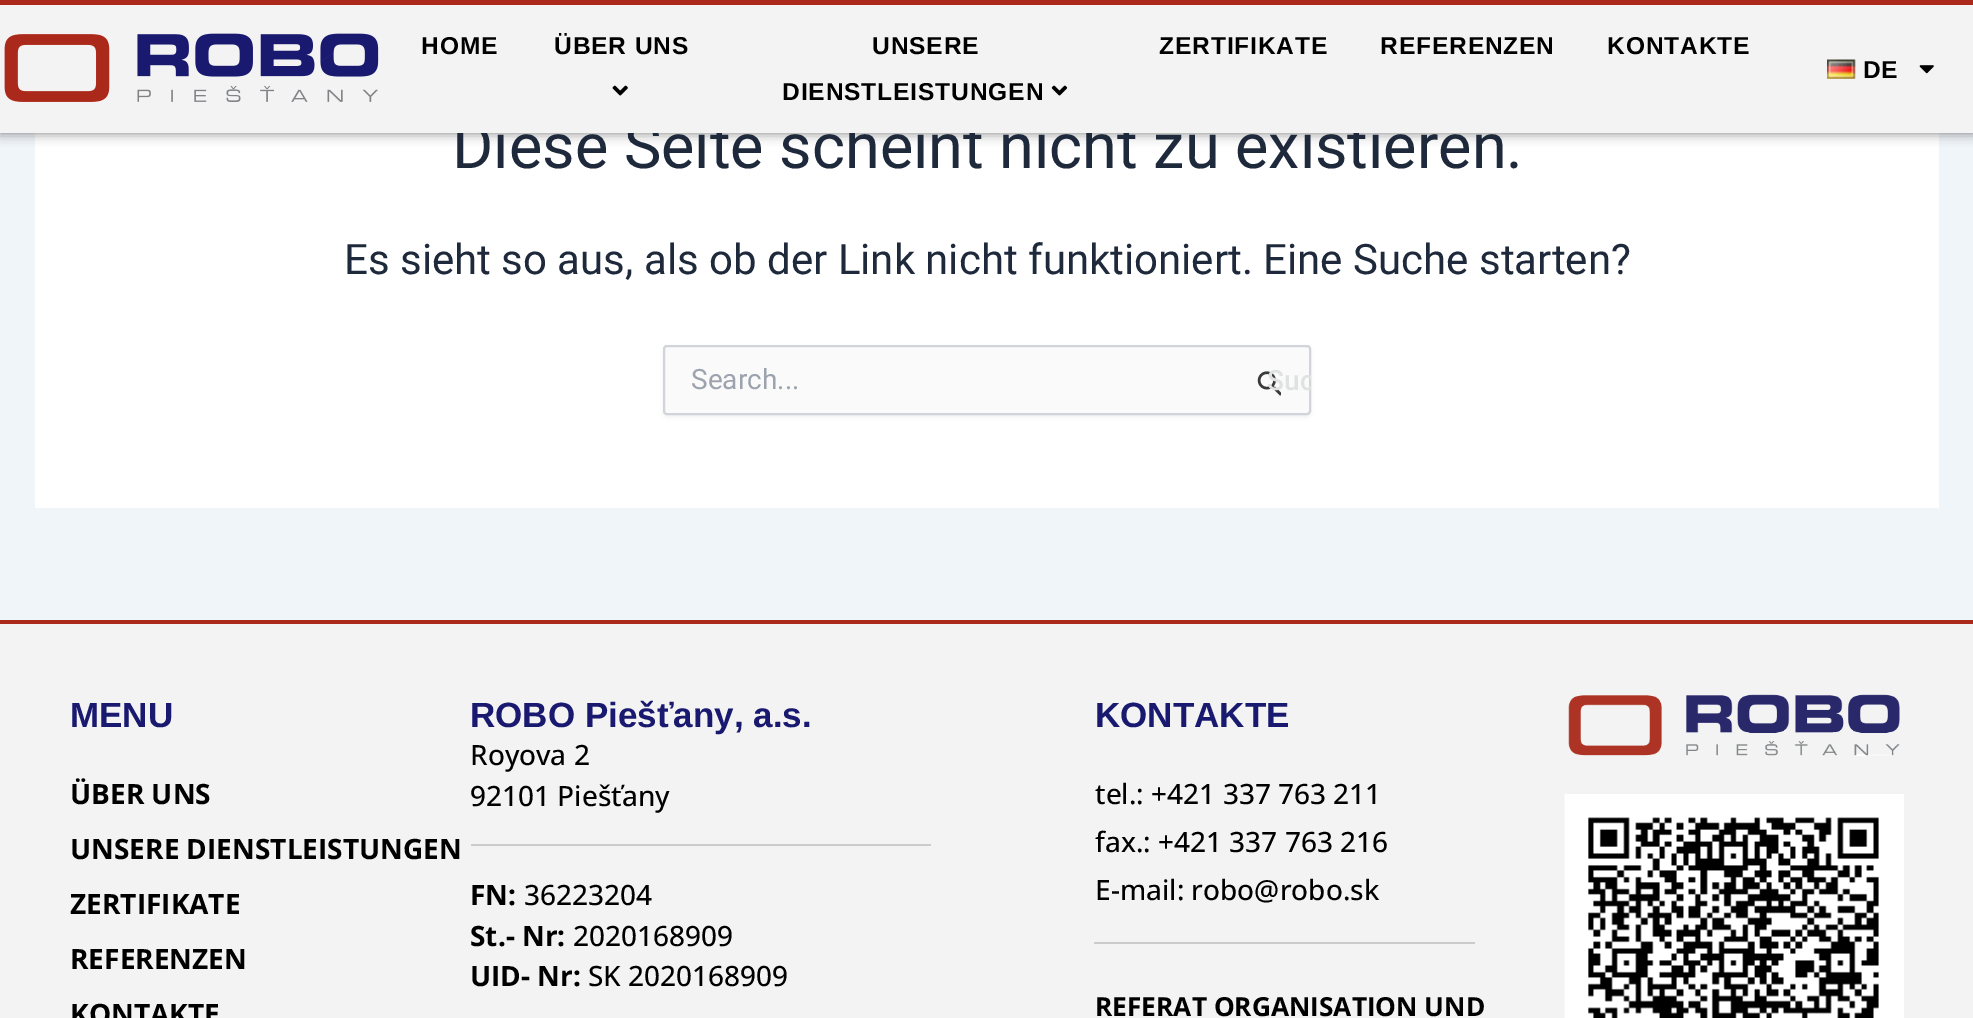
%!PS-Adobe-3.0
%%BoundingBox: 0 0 1973 1018
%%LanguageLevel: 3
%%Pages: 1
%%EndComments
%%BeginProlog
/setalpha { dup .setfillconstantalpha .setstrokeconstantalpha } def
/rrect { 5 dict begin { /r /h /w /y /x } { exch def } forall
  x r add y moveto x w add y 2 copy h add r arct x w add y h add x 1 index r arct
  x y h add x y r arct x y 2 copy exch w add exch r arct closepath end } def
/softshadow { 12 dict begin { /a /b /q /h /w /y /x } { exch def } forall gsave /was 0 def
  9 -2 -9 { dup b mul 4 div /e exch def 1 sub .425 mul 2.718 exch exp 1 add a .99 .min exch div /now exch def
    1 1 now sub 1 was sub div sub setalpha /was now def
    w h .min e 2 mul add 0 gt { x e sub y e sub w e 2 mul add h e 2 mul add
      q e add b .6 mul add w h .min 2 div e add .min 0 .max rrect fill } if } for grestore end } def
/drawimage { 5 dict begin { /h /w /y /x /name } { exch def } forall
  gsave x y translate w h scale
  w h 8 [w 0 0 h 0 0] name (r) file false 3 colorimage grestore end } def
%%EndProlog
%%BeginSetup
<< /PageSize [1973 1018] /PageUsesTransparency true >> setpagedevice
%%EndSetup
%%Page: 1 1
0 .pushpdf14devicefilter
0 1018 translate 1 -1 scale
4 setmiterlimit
0.941 0.961 0.98 setrgbcolor
0 0 1973 1018 rectfill
1 setgray
35 133 1904 375 rectfill
0 setgray
0 0 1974 133 0 6 0.5 softshadow
0.671 0.157 0.102 setrgbcolor
0 0 1973 5 rectfill
0 setgray
663 347 648 70 4 2 0.05 softshadow
0.98 setgray
664 346 646 68 3 rrect gsave fill grestore
0.82 0.835 0.859 setrgbcolor
2 setlinewidth
stroke
(images/6.raw) 1257 371 24 25 drawimage
0.953 setgray
0 624 1973 394 rectfill
0.671 0.161 0.102 setrgbcolor
0 620 1973 4 rectfill
0.796 setgray
471 844 460 2 rectfill
1094 942 381 2 rectfill
(images/7.raw) 1568 694 332 63 drawimage
(images/8.raw) 1564 794 340 224 drawimage
/Roboto-Regular [63 0 0 -63 0 0] selectfont
0.118 0.161 0.231 setrgbcolor
452 168 moveto (Diese Seite scheint nicht zu existieren.) show
0.953 setgray
0 5 1973 128 rectfill
/LiberationSans-Bold [24.5 0 0 -24.5 0 0] selectfont
0 setgray
1607 54 moveto 0.9 0 (KONTAKTE) ashow
1380 54 moveto 0.9 0 (REFERENZEN) ashow
1159 54 moveto 0.9 0 (ZERTIFIKATE) ashow
(images/3.raw) 1051 85 17 11 drawimage
782 100 moveto 0.9 0 (DIENSTLEISTUNGEN) ashow
872 54 moveto 0.9 0 (UNSERE) ashow
(images/2.raw) 612 85 16 11 drawimage
554 54 moveto 0.9 0 (ÜBER UNS) ashow
421 54 moveto 0.9 0 (HOME) ashow
(images/5.raw) 1919 65 15 9 drawimage
1863 78 moveto (DE) show
(images/4.raw) 1827 59 29 20 drawimage
(images/1.raw) 4 33 375 69 drawimage
/Roboto-Regular [42 0 0 -42 0 0] selectfont
0.118 0.161 0.231 setrgbcolor
344 274 moveto (Es sieht so aus, als ob der Link nicht funktioniert. Eine Suche starten?) show
/Roboto-Regular [28 0 0 -28 0 0] selectfont
0.612 0.639 0.686 setrgbcolor
691 389 moveto (Search...) show
gsave
1232 345 79 73 4 rrect clip newpath
/Roboto-Medium [28 0 0 -28 0 0] selectfont
0.878 0.882 0.882 setrgbcolor
1267 390 moveto (Suc) show
grestore
/LiberationSans-Bold [35 0 0 -35 0 0] selectfont
0.098 0.098 0.439 setrgbcolor
70 727 moveto (MENU) show
/OpenSans-Bold [28 0 0 -28 0 0] selectfont
0 setgray
70 804 moveto (ÜBER UNS) show
70 859 moveto (UNSERE DIENSTLEISTUNGEN) show
70 914 moveto (ZERTIFIKATE) show
70 969 moveto (REFERENZEN) show
70 1024 moveto (KONTAKTE) show
/LiberationSans-Bold [35 0 0 -35 0 0] selectfont
0.098 0.098 0.439 setrgbcolor
470 727 moveto (ROBO Piešťany, a.s.) show
/OpenSans-Medium [28 0 0 -28 0 0] selectfont
0 setgray
470 765 moveto (Royova 2) show
470 806 moveto (92101 Piešťany) show
/OpenSans-Bold [28 0 0 -28 0 0] selectfont
470 905 moveto (FN:) show
/OpenSans-Medium [28 0 0 -28 0 0] selectfont
524 905 moveto (36223204) show
/OpenSans-Bold [28 0 0 -28 0 0] selectfont
470 946 moveto (St.- Nr:) show
/OpenSans-Medium [28 0 0 -28 0 0] selectfont
573 946 moveto (2020168909) show
/OpenSans-Bold [28 0 0 -28 0 0] selectfont
470 986 moveto (UID- Nr:) show
/OpenSans-Medium [28 0 0 -28 0 0] selectfont
588 986 moveto (SK 2020168909) show
/LiberationSans-Bold [35 0 0 -35 0 0] selectfont
0.098 0.098 0.439 setrgbcolor
1095 727 moveto (KONTAKTE) show
/OpenSans-Medium [28 0 0 -28 0 0] selectfont
0 setgray
1095 804 moveto (tel.: +421 337 763 211) show
1095 852 moveto (fax.: +421 337 763 216) show
1095 900 moveto (E-mail: robo@robo.sk) show
/OpenSans-Bold [26.25 0 0 -26.25 0 0] selectfont
1095 1016 moveto (REFERAT ORGANISATION UND) show
.poppdf14devicefilter showpage
%%EOF
